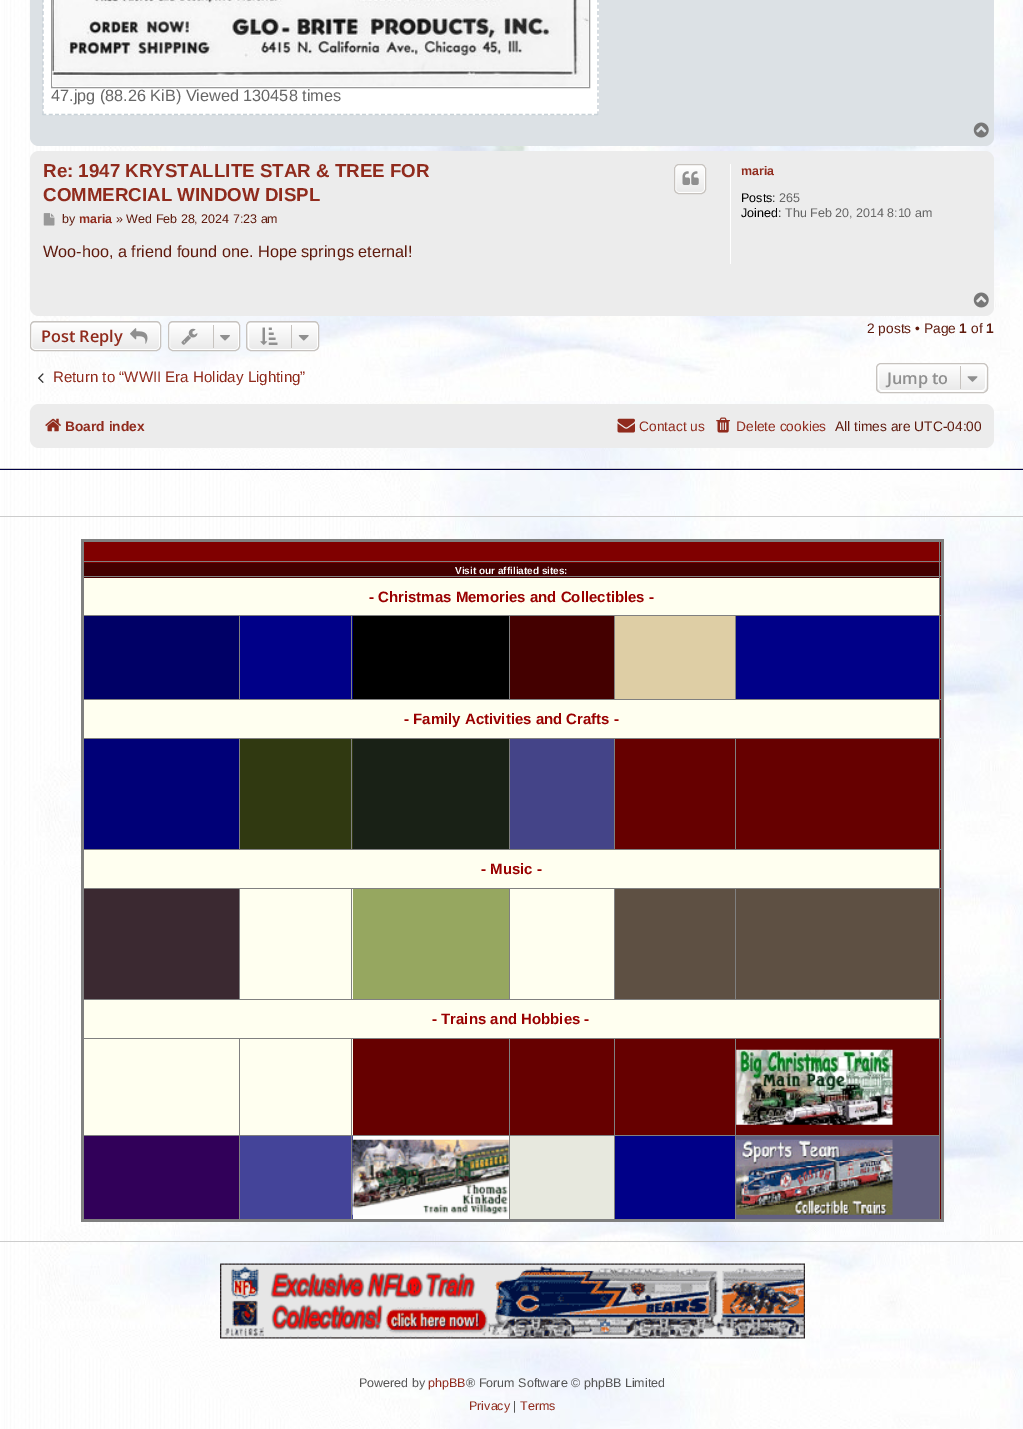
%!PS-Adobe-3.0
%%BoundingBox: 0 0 1023 1429
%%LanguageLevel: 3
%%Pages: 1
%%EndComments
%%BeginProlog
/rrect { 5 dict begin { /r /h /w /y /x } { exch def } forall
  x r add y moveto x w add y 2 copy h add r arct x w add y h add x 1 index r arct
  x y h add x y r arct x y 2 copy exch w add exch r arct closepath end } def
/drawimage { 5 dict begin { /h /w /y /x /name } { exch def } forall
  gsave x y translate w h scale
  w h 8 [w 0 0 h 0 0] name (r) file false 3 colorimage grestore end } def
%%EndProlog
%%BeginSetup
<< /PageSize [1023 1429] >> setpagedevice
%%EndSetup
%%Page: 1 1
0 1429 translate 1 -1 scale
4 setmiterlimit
1 setgray
0 0 1023 1429 rectfill
(images/1.raw) 0 0 1023 1429 drawimage
0.863 0.882 0.898 setrgbcolor
30 -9 964 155 9 rrect fill
1 setgray
43 0 556 115 rectfill
0.788 0.824 0.847 setrgbcolor
1.2 setlinewidth
[3.75 2.51] 0 setdash
newpath 598 -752.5 moveto 598 115 lineto stroke
[3.75 2.52] 0 setdash
newpath 42.5 114.5 moveto 599 114.5 lineto stroke
[3.75 2.51] 0 setdash
newpath 43 -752.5 moveto 43 115 lineto stroke
0.6 setgray
1 setlinewidth
[] 0 setdash
51.5 -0.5 538 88 rectstroke
(images/2.raw) 52 0 537 86 drawimage
(images/3.raw) 973 122 16 16 drawimage
0.925 setgray
30 151 964 165 9 rrect fill
gsave
674 164 32 30 5 rrect clip newpath
gsave newpath 674 165 moveto 706 165 lineto 706 193 lineto 674 193 lineto closepath clip newpath
<< /ShadingType 2 /ColorSpace /DeviceRGB /Coords [690 165 690 193] /Extend [true true] /Function << /FunctionType 2 /Domain [0 1] /C0 [1 1 1] /C1 [0.914 0.914 0.914] /N 1 >> >> shfill grestore
grestore
1 setgray
675.5 165.5 29 27 3.5 rrect stroke
0.78 0.765 0.749 setrgbcolor
674.5 164.5 31 29 4.5 rrect stroke
(images/4.raw) 682 171 17 14 drawimage
(images/5.raw) 43 213 12 13 drawimage
1 setgray
730 164 1 100 rectfill
(images/6.raw) 973 292 16 16 drawimage
gsave
30 321 131 30 5 rrect clip newpath
gsave newpath 30 321 moveto 161 321 lineto 161 323 lineto 30 323 lineto closepath clip newpath
<< /ShadingType 2 /ColorSpace /DeviceRGB /Coords [96 295 96 323] /Extend [true true] /Function << /FunctionType 2 /Domain [0 1] /C0 [1 1 1] /C1 [0.914 0.914 0.914] /N 1 >> >> shfill grestore
gsave newpath 30 323 moveto 161 323 lineto 161 350 lineto 30 350 lineto closepath clip newpath
<< /ShadingType 2 /ColorSpace /DeviceRGB /Coords [96 323 96 350] /Extend [true true] /Function << /FunctionType 2 /Domain [0 1] /C0 [1 1 1] /C1 [0.914 0.914 0.914] /N 1 >> >> shfill grestore
grestore
31.5 323.5 128 26 3.5 rrect stroke
0.78 0.765 0.749 setrgbcolor
30.5 321.5 130 29 4.5 rrect stroke
(images/7.raw) 130 328 18 16 drawimage
gsave
168 321 72 30 5 rrect clip newpath
gsave newpath 168 321 moveto 240 321 lineto 240 323 lineto 168 323 lineto closepath clip newpath
<< /ShadingType 2 /ColorSpace /DeviceRGB /Coords [204 295 204 323] /Extend [true true] /Function << /FunctionType 2 /Domain [0 1] /C0 [1 1 1] /C1 [0.914 0.914 0.914] /N 1 >> >> shfill grestore
gsave newpath 168 323 moveto 240 323 lineto 240 350 lineto 168 350 lineto closepath clip newpath
<< /ShadingType 2 /ColorSpace /DeviceRGB /Coords [204 323 204 350] /Extend [true true] /Function << /FunctionType 2 /Domain [0 1] /C0 [1 1 1] /C1 [0.914 0.914 0.914] /N 1 >> >> shfill grestore
grestore
1 setgray
169.5 323.5 69 26 3.5 rrect stroke
0.78 0.765 0.749 setrgbcolor
168.5 321.5 71 29 4.5 rrect stroke
(images/8.raw) 181 328 17 17 drawimage
213 325 1 23 rectfill
(images/9.raw) 220 335 10 6 drawimage
gsave
246 321 73 30 5 rrect clip newpath
gsave newpath 246 321 moveto 319 321 lineto 319 323 lineto 246 323 lineto closepath clip newpath
<< /ShadingType 2 /ColorSpace /DeviceRGB /Coords [283 295 283 323] /Extend [true true] /Function << /FunctionType 2 /Domain [0 1] /C0 [1 1 1] /C1 [0.914 0.914 0.914] /N 1 >> >> shfill grestore
gsave newpath 246 323 moveto 319 323 lineto 319 350 lineto 246 350 lineto closepath clip newpath
<< /ShadingType 2 /ColorSpace /DeviceRGB /Coords [283 323 283 350] /Extend [true true] /Function << /FunctionType 2 /Domain [0 1] /C0 [1 1 1] /C1 [0.914 0.914 0.914] /N 1 >> >> shfill grestore
grestore
1 setgray
248.5 323.5 69 26 3.5 rrect stroke
0.78 0.765 0.749 setrgbcolor
246.5 321.5 72 29 4.5 rrect stroke
(images/10.raw) 260 327 18 18 drawimage
291 325 1 23 rectfill
(images/11.raw) 298 335 11 6 drawimage
(images/12.raw) 38 373 6 10 drawimage
gsave
876 363 112 30 5 rrect clip newpath
gsave newpath 876 364 moveto 988 364 lineto 988 391 lineto 876 391 lineto closepath clip newpath
<< /ShadingType 2 /ColorSpace /DeviceRGB /Coords [932 364 932 391] /Extend [true true] /Function << /FunctionType 2 /Domain [0 1] /C0 [1 1 1] /C1 [0.914 0.914 0.914] /N 1 >> >> shfill grestore
gsave newpath 876 391 moveto 988 391 lineto 988 393 lineto 876 393 lineto closepath clip newpath
<< /ShadingType 2 /ColorSpace /DeviceRGB /Coords [932 391 932 419] /Extend [true true] /Function << /FunctionType 2 /Domain [0 1] /C0 [1 1 1] /C1 [0.914 0.914 0.914] /N 1 >> >> shfill grestore
grestore
1 setgray
878.5 364.5 107 26 3.5 rrect stroke
0.78 0.765 0.749 setrgbcolor
876.5 363.5 111 29 4.5 rrect stroke
960 366 1 23 rectfill
(images/13.raw) 967 376 11 6 drawimage
0.925 setgray
30 404 964 44 9 rrect fill
(images/14.raw) 45 418 16 14 drawimage
(images/15.raw) 617 418 18 15 drawimage
(images/16.raw) 716 417 14 16 drawimage
0 0 0.267 setrgbcolor
0 469 1023 1 rectfill
0.8 setgray
0 468 1023 1 rectfill
0 516 1023 1 rectfill
0.4 0 0 setrgbcolor
353 542 588 677 rectfill
0.502 0 0 setrgbcolor
84 542 855 21 rectfill
0.502 setgray
939 561 4 1 rectfill
0.267 0 0 setrgbcolor
84 563 855 15 rectfill
0.502 setgray
939 576 4 1 rectfill
735 615 205 1 rectfill
939 699 4 1 rectfill
735 738 205 1 rectfill
939 849 4 1 rectfill
735 888 205 1 rectfill
939 999 4 1 rectfill
735 1038 205 1 rectfill
735 1135 205 1 rectfill
939 1135 1 86 rectfill
939 1038 1 98 rectfill
939 1038 4 1 rectfill
939 999 1 40 rectfill
81 999 859 1 rectfill
939 888 1 112 rectfill
939 888 4 1 rectfill
939 849 1 40 rectfill
81 849 859 1 rectfill
939 738 1 112 rectfill
939 738 4 1 rectfill
939 699 1 40 rectfill
81 699 859 1 rectfill
939 615 1 85 rectfill
939 615 4 1 rectfill
939 576 1 40 rectfill
81 576 859 1 rectfill
939 561 1 17 rectfill
81 561 859 1 rectfill
939 540 1 23 rectfill
81 539 863 3 rectfill
941 539 3 682 rectfill
735 1135 1 86 rectfill
614 1135 122 1 rectfill
614 1135 1 86 rectfill
509 1135 106 1 rectfill
509 1135 1 86 rectfill
351 1135 159 1 rectfill
0.267 0.267 0.6 setrgbcolor
240 1136 113 83 rectfill
0.502 setgray
351 1135 1 86 rectfill
239 1135 114 1 rectfill
239 1135 1 86 rectfill
81 1219 863 3 rectfill
735 615 1 85 rectfill
614 615 122 1 rectfill
614 615 1 85 rectfill
509 615 106 1 rectfill
509 615 1 85 rectfill
351 615 159 1 rectfill
0 0 0.533 setrgbcolor
240 616 113 83 rectfill
0.502 setgray
351 615 1 85 rectfill
239 615 114 1 rectfill
239 615 1 85 rectfill
81 615 159 1 rectfill
735 738 1 112 rectfill
614 738 122 1 rectfill
614 738 1 112 rectfill
509 738 106 1 rectfill
509 738 1 112 rectfill
351 738 159 1 rectfill
0.188 0.224 0.067 setrgbcolor
240 739 113 110 rectfill
0.502 setgray
351 738 1 112 rectfill
239 738 114 1 rectfill
239 738 1 112 rectfill
81 738 159 1 rectfill
735 888 1 112 rectfill
614 888 122 1 rectfill
614 888 1 112 rectfill
509 888 106 1 rectfill
509 888 1 112 rectfill
351 888 159 1 rectfill
1 1 0.941 setrgbcolor
240 889 113 110 rectfill
0.502 setgray
351 888 1 112 rectfill
239 888 114 1 rectfill
239 888 1 112 rectfill
81 888 159 1 rectfill
735 1038 1 98 rectfill
614 1038 122 1 rectfill
614 1038 1 98 rectfill
509 1038 106 1 rectfill
509 1038 1 98 rectfill
351 1038 159 1 rectfill
1 1 0.941 setrgbcolor
240 1039 113 96 rectfill
0.502 setgray
351 1038 1 98 rectfill
239 1038 114 1 rectfill
81 1135 159 1 rectfill
239 1038 1 98 rectfill
81 1038 159 1 rectfill
81 539 3 682 rectfill
1 1 0.941 setrgbcolor
84 578 855 37 rectfill
0 0 0.4 setrgbcolor
84 616 155 83 rectfill
0 setgray
353 616 156 83 rectfill
0.267 0 0 setrgbcolor
510 616 104 83 rectfill
0.871 0.808 0.647 setrgbcolor
615 616 120 83 rectfill
0 0 0.533 setrgbcolor
736 616 203 83 rectfill
1 1 0.941 setrgbcolor
84 700 855 38 rectfill
0 0 0.467 setrgbcolor
84 739 155 110 rectfill
0.098 0.129 0.086 setrgbcolor
353 739 156 110 rectfill
0.267 0.267 0.533 setrgbcolor
510 739 104 110 rectfill
1 1 0.941 setrgbcolor
84 850 855 38 rectfill
0.231 0.161 0.192 setrgbcolor
84 889 155 110 rectfill
0.588 0.655 0.376 setrgbcolor
353 889 156 110 rectfill
1 1 0.941 setrgbcolor
510 889 104 110 rectfill
0.369 0.314 0.263 setrgbcolor
615 889 120 110 rectfill
736 889 203 110 rectfill
1 1 0.941 setrgbcolor
84 1000 855 38 rectfill
84 1039 155 96 rectfill
(images/17.raw) 736 1049 157 76 drawimage
0.192 0 0.349 setrgbcolor
84 1136 155 83 rectfill
0.996 setgray
353 1136 156 83 rectfill
(images/18.raw) 352 1139 157 76 drawimage
0.906 0.91 0.871 setrgbcolor
510 1136 104 83 rectfill
0 0 0.533 setrgbcolor
615 1136 120 83 rectfill
0.384 0.376 0.502 setrgbcolor
736 1136 203 83 rectfill
(images/19.raw) 736 1139 157 76 drawimage
0.8 setgray
0 1241 1023 1 rectfill
(images/20.raw) 220 1263 585 76 drawimage
/LiberationSans-Regular [16.25 0 0 -16.25 0 0] selectfont
0.4 setgray
51 101 moveto (47.jpg \(88.26 KiB\) Viewed 130458 times) show
/LiberationSans-Bold [18.75 0 0 -18.75 0 0] selectfont
0.565 0.169 0.114 setrgbcolor
43 177 moveto (Re: 1947 KRYSTALLITE STAR & TREE FOR) show
43 201 moveto (COMMERCIAL WINDOW DISPL) show
/LiberationSans-Regular [12.5 0 0 -12.5 0 0] selectfont
0.373 0.106 0.055 setrgbcolor
62 223 moveto (by) show
/LiberationSans-Bold [12.5 0 0 -12.5 0 0] selectfont
0.565 0.169 0.114 setrgbcolor
79 223 moveto (maria) show
/LiberationSans-Regular [12.5 0 0 -12.5 0 0] selectfont
0.373 0.106 0.055 setrgbcolor
116 223 moveto (» Wed Feb 28, 2024 7:23 am) show
/LiberationSans-Regular [16.25 0 0 -16.25 0 0] selectfont
43 257 moveto (Woo-hoo, a friend found one. Hope springs eternal!) show
/LiberationSans-Bold [12.5 0 0 -12.5 0 0] selectfont
0.565 0.169 0.114 setrgbcolor
741 175 moveto (maria) show
/LiberationSans-Regular [12.5 0 0 -12.5 0 0] selectfont
0 setgray
741 202 moveto (Posts:) show
0.4 setgray
779 202 moveto (265) show
0 setgray
741 217 moveto (Joined:) show
0.4 setgray
785 217 moveto (Thu Feb 20, 2014 8:10 am) show
/OpenSans-SemiBold [16.25 0 0 -16.25 0 0] selectfont
0.565 0.169 0.114 setrgbcolor
41 342 moveto (Post Reply) show
/LiberationSans-Regular [13.75 0 0 -13.75 0 0] selectfont
0.373 0.106 0.055 setrgbcolor
867 333 moveto (2 posts • Page) show
/LiberationSans-Bold [13.75 0 0 -13.75 0 0] selectfont
959 333 moveto (1) show
/LiberationSans-Regular [13.75 0 0 -13.75 0 0] selectfont
971 333 moveto (of) show
/LiberationSans-Bold [13.75 0 0 -13.75 0 0] selectfont
986 333 moveto (1) show
/LiberationSans-Regular [15.1 0 0 -15.1 0 0] selectfont
0.565 0.169 0.114 setrgbcolor
53 382 moveto (Return to “WWII Era Holiday Lighting”) show
/OpenSans-SemiBold [16.25 0 0 -16.25 0 0] selectfont
0.561 setgray
887 384 moveto (Jump to) show
/LiberationSans-Bold [13.75 0 0 -13.75 0 0] selectfont
0.565 0.169 0.114 setrgbcolor
65 431 moveto (Board index) show
/LiberationSans-Regular [13.75 0 0 -13.75 0 0] selectfont
639 431 moveto (Contact us) show
736 431 moveto (Delete cookies) show
0.373 0.106 0.055 setrgbcolor
835 431 moveto (All times are UTC-04:00) show
/LiberationSans-Bold [10 0 0 -10 0 0] selectfont
1 setgray
455 574 moveto (Visit our affiliated sites:) show
/LiberationSans-Bold [15 0 0 -15 0 0] selectfont
0.6 0 0 setrgbcolor
369 602 moveto (- Christmas Memories and Collectibles -) show
404 724 moveto (- Family Activities and Crafts -) show
481 874 moveto (- Music -) show
432 1024 moveto (- Trains and Hobbies -) show
/LiberationSans-Regular [12.5 0 0 -12.5 0 0] selectfont
0.333 setgray
359 1387 moveto (Powered by) show
0.565 0.169 0.114 setrgbcolor
428 1387 moveto (phpBB) show
0.333 setgray
466 1387 moveto (® Forum Software © phpBB Limited) show
0.565 0.169 0.114 setrgbcolor
469 1410 moveto (Privacy) show
0.333 setgray
513 1410 moveto (|) show
0.565 0.169 0.114 setrgbcolor
520 1410 moveto (Terms) show
showpage
%%EOF
